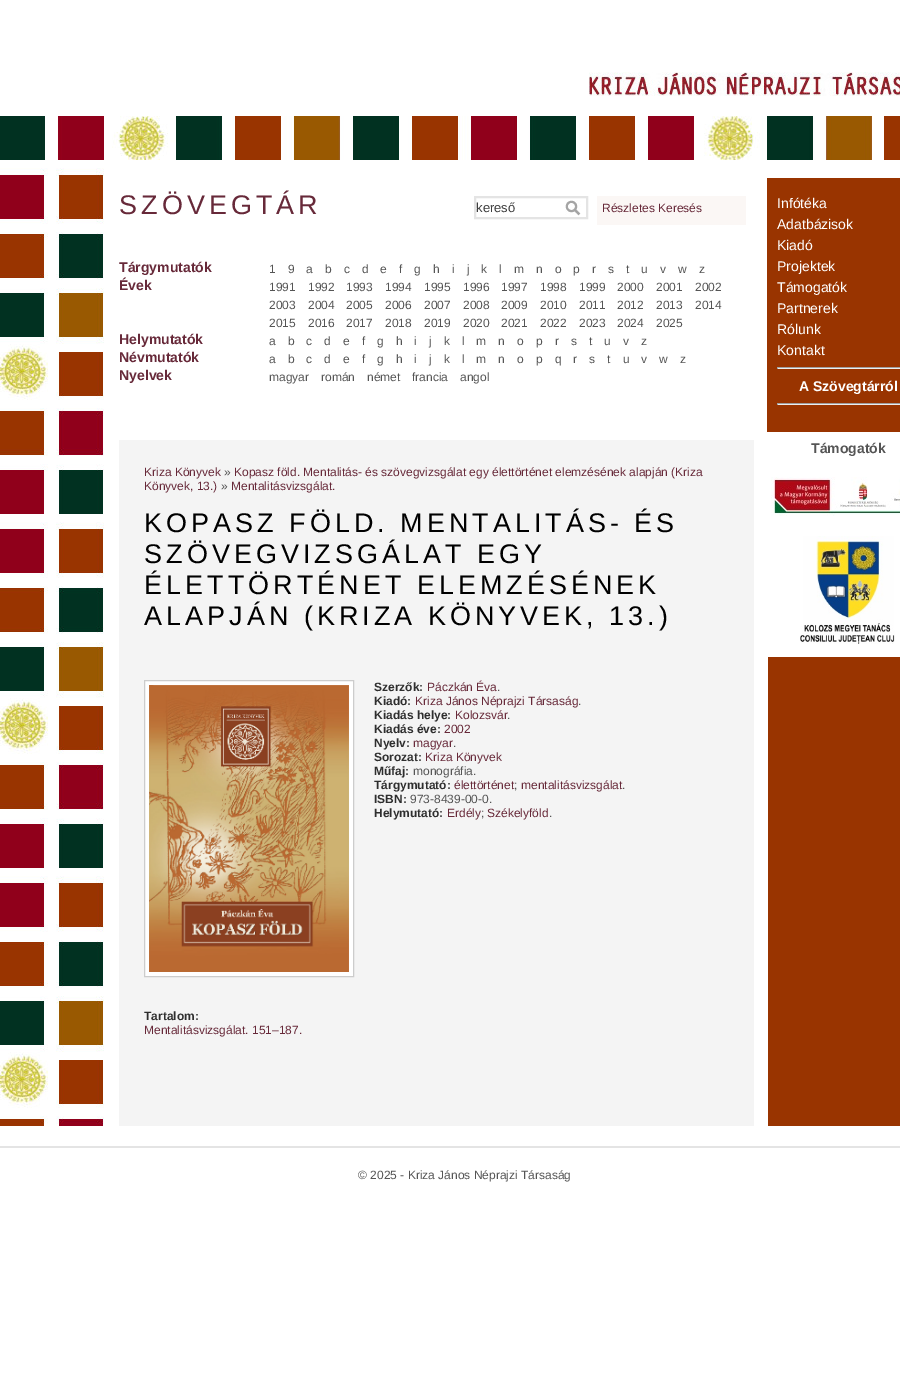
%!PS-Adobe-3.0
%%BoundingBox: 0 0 900 1390
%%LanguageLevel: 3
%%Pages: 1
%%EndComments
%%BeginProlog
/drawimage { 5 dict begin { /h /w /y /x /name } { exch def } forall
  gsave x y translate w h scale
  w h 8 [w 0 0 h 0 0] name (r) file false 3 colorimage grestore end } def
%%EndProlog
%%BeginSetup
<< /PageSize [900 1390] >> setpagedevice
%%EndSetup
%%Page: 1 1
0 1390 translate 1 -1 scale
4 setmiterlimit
1 setgray
0 0 900 1390 rectfill
(images/1.raw) 0 116 900 44 drawimage
(images/2.raw) 589 72 311 24 drawimage
(images/3.raw) 0 160 900 966 drawimage
0.894 setgray
2 setlinewidth
475 197 112 21 rectstroke
(images/4.raw) 565 200 16 16 drawimage
0.984 0.969 0.961 setrgbcolor
597 196 149 29 rectfill
0.957 setgray
119 440 635 686 rectfill
1 setgray
newpath 144.5 680.5 moveto 353.5 680.5 lineto 353.5 976.5 lineto 144.5 976.5 lineto closepath gsave fill grestore
0.8 setgray
1 setlinewidth
stroke
(images/5.raw) 149 685 200 287 drawimage
1 setgray
768 160 132 497 rectfill
0.6 0.204 0 setrgbcolor
767 178 133 254 rectfill
0.624 setgray
777 367 123 1 rectfill
0.933 setgray
777 368 123 1 rectfill
0.624 setgray
777 367 1 2 rectfill
777 403 123 1 rectfill
0.933 setgray
777 404 123 1 rectfill
0.624 setgray
777 403 1 2 rectfill
(images/6.raw) 771 477 129 39 drawimage
(images/7.raw) 800 536 95 108 drawimage
0.894 setgray
0 1146 900 2 rectfill
/LiberationSans-Regular [27 0 0 -27 0 0] selectfont
0.404 0.161 0.224 setrgbcolor
119 214 moveto 4 0 (SZÖVEGTÁR) ashow
/LiberationSans-Regular [13 0 0 -13 0 0] selectfont
0.247 setgray
476 212 moveto (kereső) show
/LiberationSans-Regular [12 0 0 -12 0 0] selectfont
0.404 0.161 0.224 setrgbcolor
602 212 moveto (Részletes Keresés) show
/LiberationSans-Bold [14 0 0 -14 0 0] selectfont
119 272 moveto (Tárgymutatók) show
/LiberationSans-Regular [12 0 0 -12 0 0] selectfont
0.333 setgray
269 273 moveto (1) show
288 273 moveto (9) show
306 273 moveto (a) show
325 273 moveto (b) show
344 273 moveto (c) show
362 273 moveto (d) show
380 273 moveto (e) show
399 273 moveto (f) show
414 273 moveto (g) show
433 273 moveto (h) show
452 273 moveto (i) show
467 273 moveto (j) show
481 273 moveto (k) show
499 273 moveto (l) show
514 273 moveto (m) show
536 273 moveto (n) show
555 273 moveto (o) show
573 273 moveto (p) show
592 273 moveto (r) show
608 273 moveto (s) show
626 273 moveto (t) show
641 273 moveto (u) show
660 273 moveto (v) show
678 273 moveto (w) show
699 273 moveto (z) show
/LiberationSans-Bold [14 0 0 -14 0 0] selectfont
0.404 0.161 0.224 setrgbcolor
119 290 moveto (Évek) show
/LiberationSans-Regular [12 0 0 -12 0 0] selectfont
0.333 setgray
269 291 moveto (1991) show
308 291 moveto (1992) show
346 291 moveto (1993) show
385 291 moveto (1994) show
424 291 moveto (1995) show
463 291 moveto (1996) show
501 291 moveto (1997) show
540 291 moveto (1998) show
579 291 moveto (1999) show
617 291 moveto (2000) show
656 291 moveto (2001) show
695 291 moveto (2002) show
269 309 moveto (2003) show
308 309 moveto (2004) show
346 309 moveto (2005) show
385 309 moveto (2006) show
424 309 moveto (2007) show
463 309 moveto (2008) show
501 309 moveto (2009) show
540 309 moveto (2010) show
579 309 moveto (2011) show
617 309 moveto (2012) show
656 309 moveto (2013) show
695 309 moveto (2014) show
269 327 moveto (2015) show
308 327 moveto (2016) show
346 327 moveto (2017) show
385 327 moveto (2018) show
424 327 moveto (2019) show
463 327 moveto (2020) show
501 327 moveto (2021) show
540 327 moveto (2022) show
579 327 moveto (2023) show
617 327 moveto (2024) show
656 327 moveto (2025) show
/LiberationSans-Bold [14 0 0 -14 0 0] selectfont
0.404 0.161 0.224 setrgbcolor
119 344 moveto (Helymutatók) show
/LiberationSans-Regular [12 0 0 -12 0 0] selectfont
0.333 setgray
269 345 moveto (a) show
288 345 moveto (b) show
306 345 moveto (c) show
324 345 moveto (d) show
343 345 moveto (e) show
362 345 moveto (f) show
377 345 moveto (g) show
396 345 moveto (h) show
414 345 moveto (i) show
429 345 moveto (j) show
444 345 moveto (k) show
462 345 moveto (l) show
476 345 moveto (m) show
498 345 moveto (n) show
517 345 moveto (o) show
536 345 moveto (p) show
555 345 moveto (r) show
571 345 moveto (s) show
589 345 moveto (t) show
604 345 moveto (u) show
623 345 moveto (v) show
641 345 moveto (z) show
/LiberationSans-Bold [14 0 0 -14 0 0] selectfont
0.404 0.161 0.224 setrgbcolor
119 362 moveto (Névmutatók) show
/LiberationSans-Regular [12 0 0 -12 0 0] selectfont
0.333 setgray
269 363 moveto (a) show
288 363 moveto (b) show
306 363 moveto (c) show
324 363 moveto (d) show
343 363 moveto (e) show
362 363 moveto (f) show
377 363 moveto (g) show
396 363 moveto (h) show
414 363 moveto (i) show
429 363 moveto (j) show
444 363 moveto (k) show
462 363 moveto (l) show
476 363 moveto (m) show
498 363 moveto (n) show
517 363 moveto (o) show
536 363 moveto (p) show
555 363 moveto (q) show
573 363 moveto (r) show
589 363 moveto (s) show
607 363 moveto (t) show
623 363 moveto (u) show
641 363 moveto (v) show
659 363 moveto (w) show
680 363 moveto (z) show
/LiberationSans-Bold [14 0 0 -14 0 0] selectfont
0.404 0.161 0.224 setrgbcolor
119 380 moveto (Nyelvek) show
/LiberationSans-Regular [12 0 0 -12 0 0] selectfont
0.333 setgray
269 381 moveto (magyar) show
321 381 moveto (román) show
367 381 moveto (német) show
412 381 moveto (francia) show
460 381 moveto (angol) show
0.404 0.161 0.224 setrgbcolor
144 476 moveto (Kriza Könyvek) show
0.333 setgray
224 476 moveto (») show
0.404 0.161 0.224 setrgbcolor
234 476 moveto (Kopasz föld. Mentalitás- és szövegvizsgálat egy élettörténet elemzésének alapján \(Kriza) show
144 490 moveto (Könyvek, 13.\)) show
0.333 setgray
221 490 moveto (») show
0.404 0.161 0.224 setrgbcolor
231 490 moveto (Mentalitásvizsgálat.) show
/LiberationSans-Regular [27 0 0 -27 0 0] selectfont
0 setgray
144 532 moveto 4 0 (KOPASZ FÖLD. MENTALITÁS- ÉS) ashow
144 563 moveto 4 0 (SZÖVEGVIZSGÁLAT EGY) ashow
144 594 moveto 4 0 (ÉLETTÖRTÉNET ELEMZÉSÉNEK) ashow
144 625 moveto 4 0 (ALAPJÁN \(KRIZA KÖNYVEK, 13.\)) ashow
/LiberationSans-Bold [12 0 0 -12 0 0] selectfont
0.18 setgray
374 691 moveto (Szerzők:) show
/LiberationSans-Regular [12 0 0 -12 0 0] selectfont
0.404 0.161 0.224 setrgbcolor
427 691 moveto (Páczkán Éva) show
0.333 setgray
497 691 moveto (.) show
/LiberationSans-Bold [12 0 0 -12 0 0] selectfont
0.18 setgray
374 705 moveto (Kiadó:) show
/LiberationSans-Regular [12 0 0 -12 0 0] selectfont
0.404 0.161 0.224 setrgbcolor
415 705 moveto (Kriza János Néprajzi Társaság) show
0.333 setgray
578 705 moveto (.) show
/LiberationSans-Bold [12 0 0 -12 0 0] selectfont
0.18 setgray
374 719 moveto (Kiadás helye:) show
/LiberationSans-Regular [12 0 0 -12 0 0] selectfont
0.404 0.161 0.224 setrgbcolor
455 719 moveto (Kolozsvár) show
0.333 setgray
507 719 moveto (.) show
/LiberationSans-Bold [12 0 0 -12 0 0] selectfont
0.18 setgray
374 733 moveto (Kiadás éve:) show
/LiberationSans-Regular [12 0 0 -12 0 0] selectfont
0.404 0.161 0.224 setrgbcolor
444 733 moveto (2002) show
/LiberationSans-Bold [12 0 0 -12 0 0] selectfont
0.18 setgray
374 747 moveto (Nyelv:) show
/LiberationSans-Regular [12 0 0 -12 0 0] selectfont
0.404 0.161 0.224 setrgbcolor
413 747 moveto (magyar) show
0.333 setgray
453 747 moveto (.) show
/LiberationSans-Bold [12 0 0 -12 0 0] selectfont
0.18 setgray
374 761 moveto (Sorozat:) show
/LiberationSans-Regular [12 0 0 -12 0 0] selectfont
0.404 0.161 0.224 setrgbcolor
425 761 moveto (Kriza Könyvek) show
/LiberationSans-Bold [12 0 0 -12 0 0] selectfont
0.18 setgray
374 775 moveto (Műfaj:) show
/LiberationSans-Regular [12 0 0 -12 0 0] selectfont
0.333 setgray
413 775 moveto (monográfia.) show
/LiberationSans-Bold [12 0 0 -12 0 0] selectfont
0.18 setgray
374 789 moveto (Tárgymutató:) show
/LiberationSans-Regular [12 0 0 -12 0 0] selectfont
0.404 0.161 0.224 setrgbcolor
454 789 moveto (élettörténet) show
0.333 setgray
514 789 moveto (;) show
0.404 0.161 0.224 setrgbcolor
521 789 moveto (mentalitásvizsgálat) show
0.333 setgray
622 789 moveto (.) show
/LiberationSans-Bold [12 0 0 -12 0 0] selectfont
0.18 setgray
374 803 moveto (ISBN:) show
/LiberationSans-Regular [12 0 0 -12 0 0] selectfont
0.333 setgray
410 803 moveto (973-8439-00-0.) show
/LiberationSans-Bold [12 0 0 -12 0 0] selectfont
0.18 setgray
374 817 moveto (Helymutató:) show
/LiberationSans-Regular [12 0 0 -12 0 0] selectfont
0.404 0.161 0.224 setrgbcolor
447 817 moveto (Erdély) show
0.333 setgray
481 817 moveto (;) show
0.404 0.161 0.224 setrgbcolor
487 817 moveto (Székelyföld) show
0.333 setgray
549 817 moveto (.) show
/LiberationSans-Bold [12 0 0 -12 0 0] selectfont
0.18 setgray
144 1020 moveto (Tartalom:) show
/LiberationSans-Regular [12 0 0 -12 0 0] selectfont
0.404 0.161 0.224 setrgbcolor
144 1034 moveto (Mentalitásvizsgálat. 151–187.) show
/LiberationSans-Regular [14 0 0 -14 0 0] selectfont
1 setgray
777 208 moveto (Infótéka) show
777 229 moveto (Adatbázisok) show
777 250 moveto (Kiadó) show
777 271 moveto (Projektek) show
777 292 moveto (Támogatók) show
777 313 moveto (Partnerek) show
777 334 moveto (Rólunk) show
777 355 moveto (Kontakt) show
/LiberationSans-Bold [14 0 0 -14 0 0] selectfont
799 391 moveto (A Szövegtárról) show
0.333 setgray
811 453 moveto (Támogatók) show
/LiberationSans-Regular [12 0 0 -12 0 0] selectfont
358 1179 moveto (© 2025 - Kriza János Néprajzi Társaság) show
showpage
%%EOF
